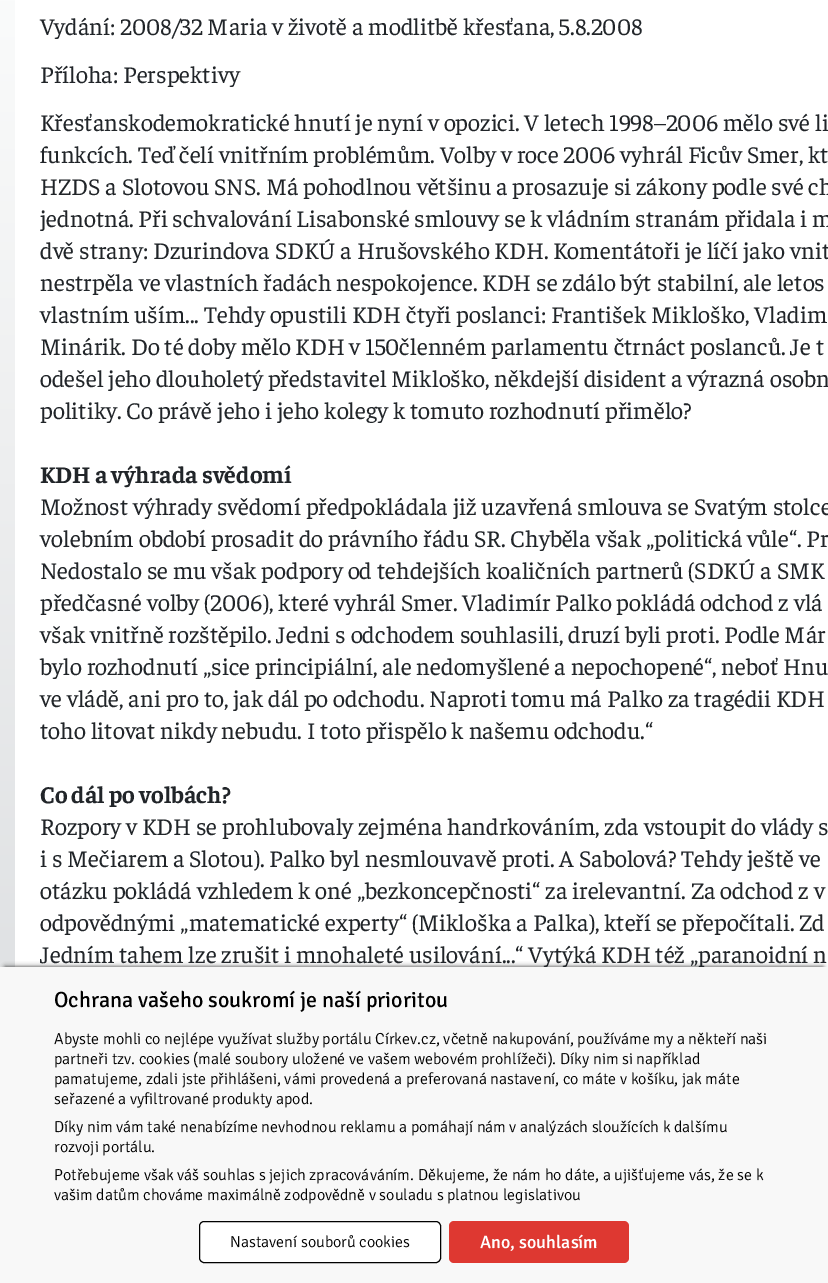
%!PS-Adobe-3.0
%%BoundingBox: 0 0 828 1283
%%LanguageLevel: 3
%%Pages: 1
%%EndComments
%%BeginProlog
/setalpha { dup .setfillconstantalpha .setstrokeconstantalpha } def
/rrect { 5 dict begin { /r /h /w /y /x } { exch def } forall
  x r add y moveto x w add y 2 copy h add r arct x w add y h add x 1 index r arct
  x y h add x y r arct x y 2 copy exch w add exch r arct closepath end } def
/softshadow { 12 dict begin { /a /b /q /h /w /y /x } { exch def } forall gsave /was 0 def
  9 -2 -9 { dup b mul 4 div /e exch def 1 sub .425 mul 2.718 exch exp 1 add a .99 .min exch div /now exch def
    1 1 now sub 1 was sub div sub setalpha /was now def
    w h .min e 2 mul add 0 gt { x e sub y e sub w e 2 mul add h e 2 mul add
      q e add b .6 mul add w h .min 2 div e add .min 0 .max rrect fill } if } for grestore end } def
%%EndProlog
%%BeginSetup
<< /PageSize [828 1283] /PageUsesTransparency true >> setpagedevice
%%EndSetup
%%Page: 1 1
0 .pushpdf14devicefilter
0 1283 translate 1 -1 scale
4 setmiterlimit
1 setgray
0 0 828 1283 rectfill
gsave newpath 0 0 moveto 15 0 lineto 15 967 lineto 0 967 lineto closepath clip newpath
<< /ShadingType 2 /ColorSpace /DeviceRGB /Coords [414 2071 414 -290] /Extend [true true] /Function << /FunctionType 3 /Domain [0 1] /Functions [<< /FunctionType 2 /Domain [0 1] /C0 [0.847 0.859 0.867] /C1 [0.847 0.859 0.867] /N 1 >> << /FunctionType 2 /Domain [0 1] /C0 [0.847 0.859 0.867] /C1 [1 1 1] /N 1 >> << /FunctionType 2 /Domain [0 1] /C0 [1 1 1] /C1 [1 1 1] /N 1 >>] /Bounds [0.35 0.95] /Encode [0 1 0 1 0 1] >> >> shfill grestore
0.2 setgray
5 967 818 306 0 2.5 1 softshadow
0.973 setgray
0 967 828 316 rectfill
1 setgray
199.5 1221.5 241 41 4.5 rrect gsave fill grestore
0 setgray
stroke
0.871 0.22 0.192 setrgbcolor
449 1221 180 42 5 rrect fill
/Faustina-Light [24 0 0 -24 0 0] selectfont
0.129 0.145 0.161 setrgbcolor
40 35 moveto (Vydání: 2008/32 Maria v životě a modlitbě křesťana, 5.8.2008) show
40 83 moveto (Příloha: Perspektivy) show
40 131 moveto (Křesťanskodemokratické hnutí je nyní v opozici. V letech 1998–2006 mělo své li) show
40 163 moveto (funkcích. Teď čelí vnitřním problémům. Volby v roce 2006 vyhrál Ficův Smer, kt) show
40 195 moveto (HZDS a Slotovou SNS. Má pohodlnou většinu a prosazuje si zákony podle své ch) show
40 227 moveto (jednotná. Při schvalování Lisabonské smlouvy se k vládním stranám přidala i m) show
40 259 moveto (dvě strany: Dzurindova SDKÚ a Hrušovského KDH. Komentátoři je líčí jako vnit) show
40 291 moveto (nestrpěla ve vlastních řadách nespokojence. KDH se zdálo být stabilní, ale letos) show
40 323 moveto (vlastním uším... Tehdy opustili KDH čtyři poslanci: František Mikloško, Vladim) show
40 355 moveto (Minárik. Do té doby mělo KDH v 150členném parlamentu čtrnáct poslanců. Je t) show
40 387 moveto (odešel jeho dlouholetý představitel Mikloško, někdejší disident a výrazná osobn) show
40 419 moveto (politiky. Co právě jeho i jeho kolegy k tomuto rozhodnutí přimělo?) show
/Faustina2-Light [24 0 0 -24 0 0] selectfont
40 483 moveto (KDH a výhrada svědomí) show
/Faustina-Light [24 0 0 -24 0 0] selectfont
40 515 moveto (Možnost výhrady svědomí předpokládala již uzavřená smlouva se Svatým stolce) show
40 547 moveto (volebním období prosadit do právního řádu SR. Chyběla však „politická vůle“. Pr) show
40 579 moveto (Nedostalo se mu však podpory od tehdejších koaličních partnerů \(SDKÚ a SMK) show
40 611 moveto (předčasné volby \(2006\), které vyhrál Smer. Vladimír Palko pokládá odchod z vlá) show
40 643 moveto (však vnitřně rozštěpilo. Jedni s odchodem souhlasili, druzí byli proti. Podle Már) show
40 675 moveto (bylo rozhodnutí „sice principiální, ale nedomyšlené a nepochopené“, neboť Hnu) show
40 707 moveto (ve vládě, ani pro to, jak dál po odchodu. Naproti tomu má Palko za tragédii KDH) show
40 739 moveto (toho litovat nikdy nebudu. I toto přispělo k našemu odchodu.“) show
/Faustina2-Light [24 0 0 -24 0 0] selectfont
40 803 moveto (Co dál po volbách?) show
/Faustina-Light [24 0 0 -24 0 0] selectfont
40 835 moveto (Rozpory v KDH se prohlubovaly zejména handrkováním, zda vstoupit do vlády s) show
40 867 moveto (i s Mečiarem a Slotou\). Palko byl nesmlouvavě proti. A Sabolová? Tehdy ještě ve) show
40 899 moveto (otázku pokládá vzhledem k oné „bezkoncepčnosti“ za irelevantní. Za odchod z v) show
40 931 moveto (odpovědnými „matematické experty“ \(Mikloška a Palka\), kteří se přepočítali. Zd) show
40 963 moveto (Jedním tahem lze zrušit i mnohaleté usilování...“ Vytýká KDH též „paranoidní n) show
/Signika-Light [22 0 0 -22 0 0] selectfont
0 setgray
54 1007 moveto (Ochrana vašeho soukromí je naší prioritou) show
/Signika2-Light [16 0 0 -16 0 0] selectfont
54 1044 moveto (Abyste mohli co nejlépe využívat služby portálu Církev.cz, včetně nakupování, používáme my a někteří naši) show
54 1064 moveto (partneři tzv. cookies \(malé soubory uložené ve vašem webovém prohlížeči\). Díky nim si například) show
54 1084 moveto (pamatujeme, zdali jste přihlášeni, vámi provedená a preferovaná nastavení, co máte v košíku, jak máte) show
54 1104 moveto (seřazené a vyfiltrované produkty apod.) show
54 1132 moveto (Díky nim vám také nenabízíme nevhodnou reklamu a pomáhají nám v analýzách sloužících k dalšímu) show
54 1152 moveto (rozvoji portálu.) show
54 1180 moveto (Potřebujeme však váš souhlas s jejich zpracováváním. Děkujeme, že nám ho dáte, a ujišťujeme vás, že se k) show
54 1200 moveto (vašim datům chováme maximálně zodpovědně v souladu s platnou legislativou) show
230 1247 moveto (Nastavení souborů cookies) show
/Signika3-Light [18 0 0 -18 0 0] selectfont
1 setgray
480 1248 moveto (Ano, souhlasím) show
.poppdf14devicefilter showpage
%%EOF
